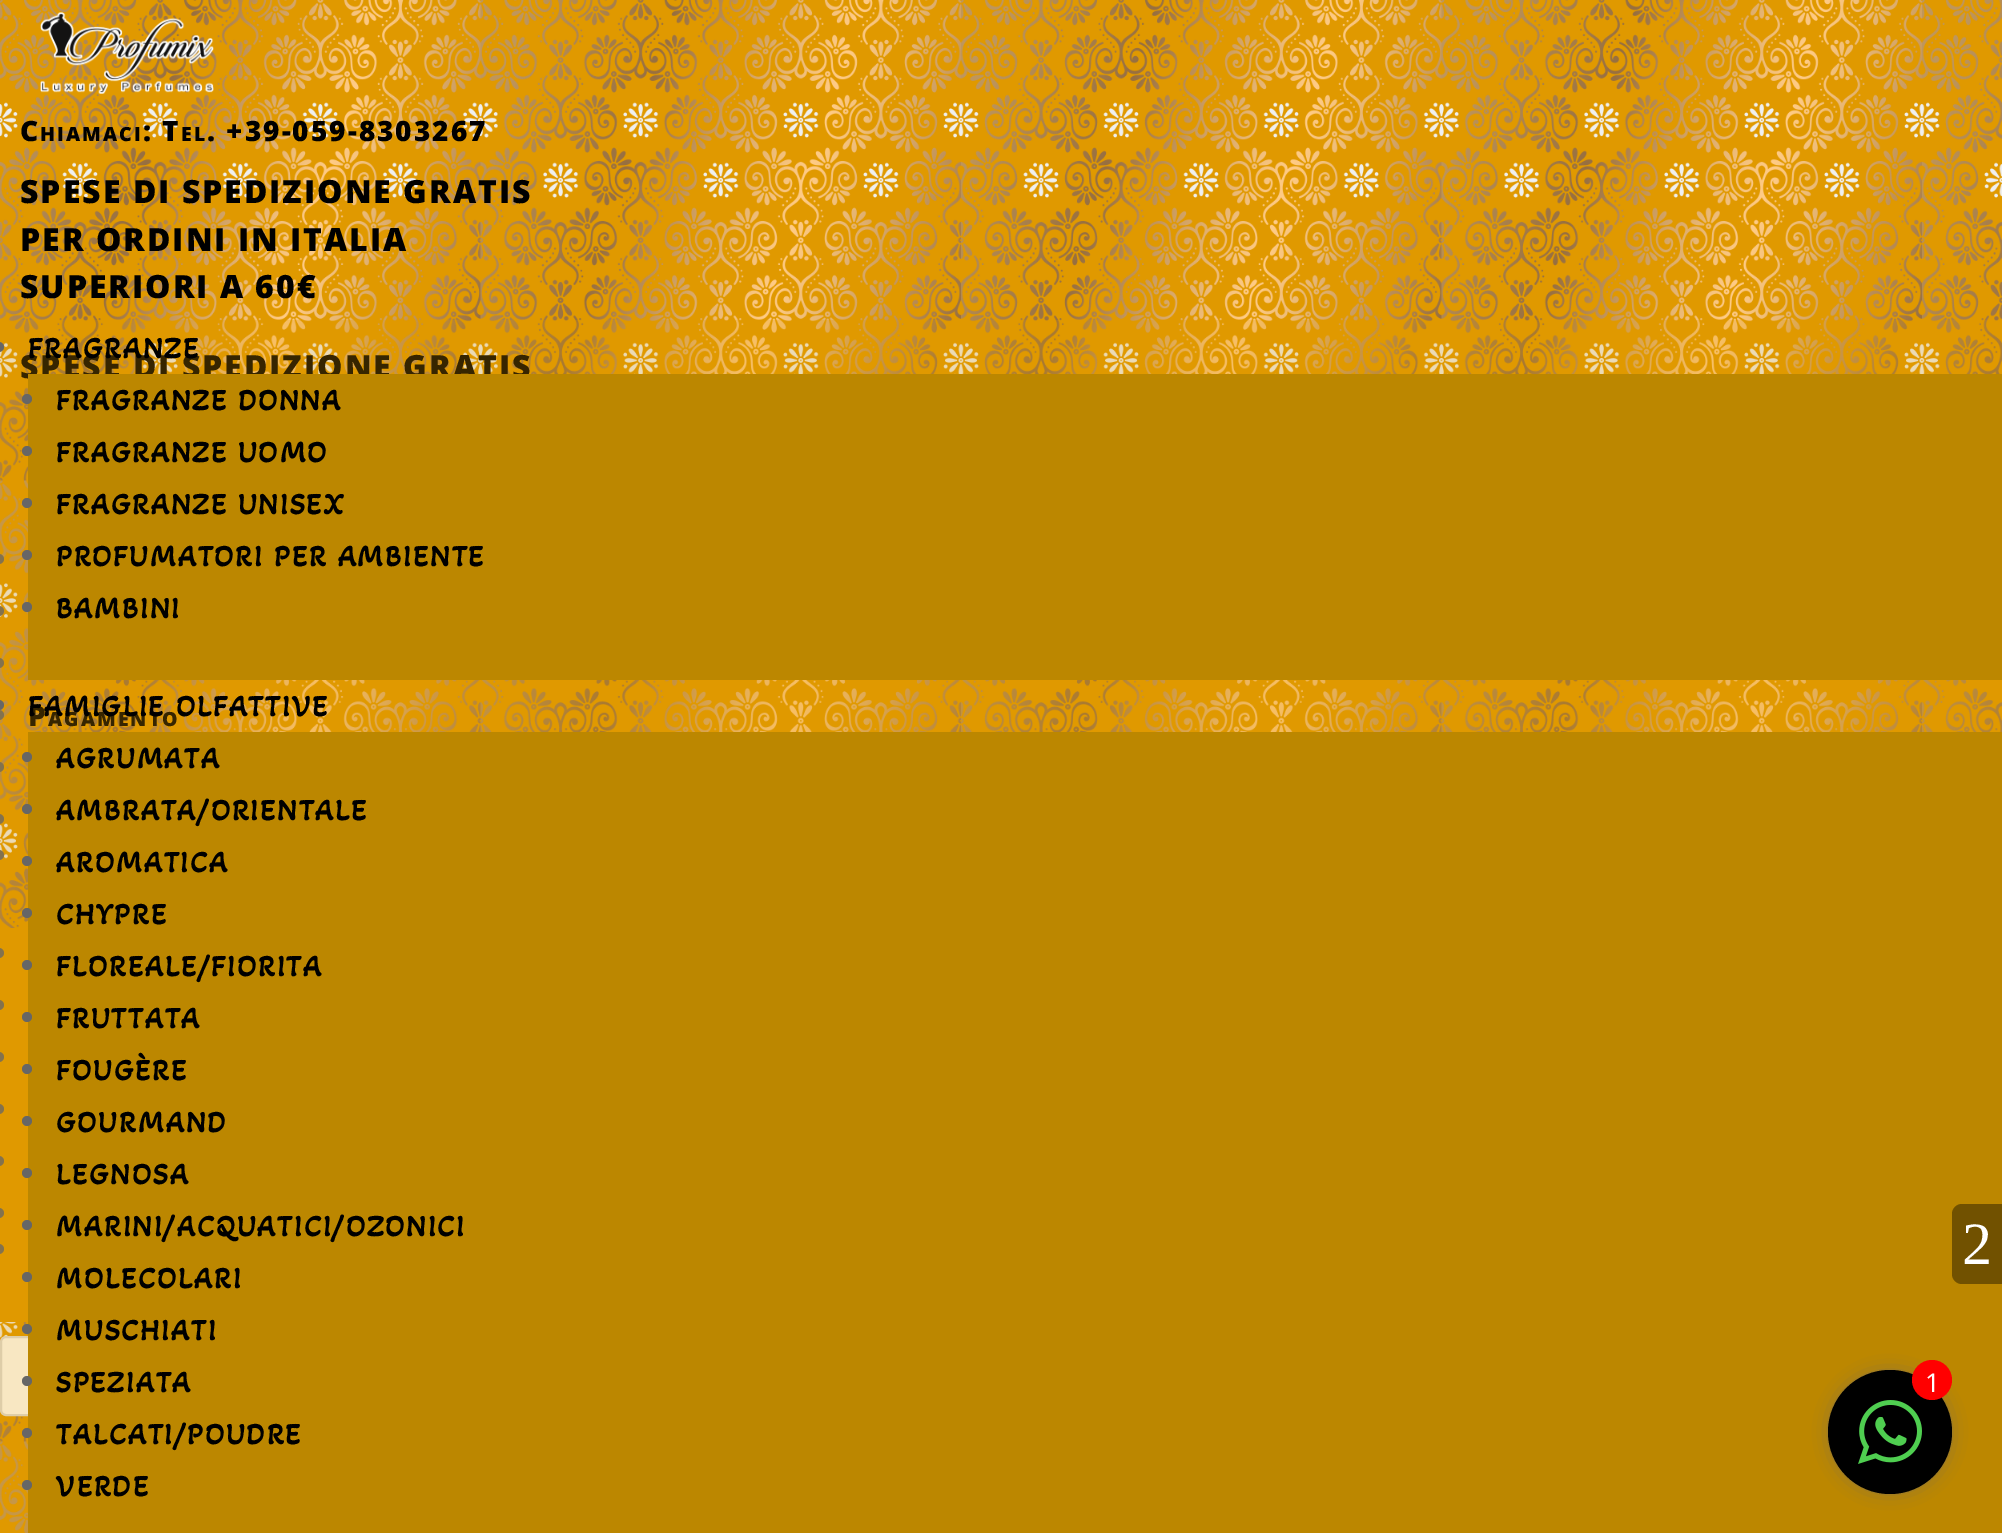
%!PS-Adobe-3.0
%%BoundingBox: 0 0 2002 1533
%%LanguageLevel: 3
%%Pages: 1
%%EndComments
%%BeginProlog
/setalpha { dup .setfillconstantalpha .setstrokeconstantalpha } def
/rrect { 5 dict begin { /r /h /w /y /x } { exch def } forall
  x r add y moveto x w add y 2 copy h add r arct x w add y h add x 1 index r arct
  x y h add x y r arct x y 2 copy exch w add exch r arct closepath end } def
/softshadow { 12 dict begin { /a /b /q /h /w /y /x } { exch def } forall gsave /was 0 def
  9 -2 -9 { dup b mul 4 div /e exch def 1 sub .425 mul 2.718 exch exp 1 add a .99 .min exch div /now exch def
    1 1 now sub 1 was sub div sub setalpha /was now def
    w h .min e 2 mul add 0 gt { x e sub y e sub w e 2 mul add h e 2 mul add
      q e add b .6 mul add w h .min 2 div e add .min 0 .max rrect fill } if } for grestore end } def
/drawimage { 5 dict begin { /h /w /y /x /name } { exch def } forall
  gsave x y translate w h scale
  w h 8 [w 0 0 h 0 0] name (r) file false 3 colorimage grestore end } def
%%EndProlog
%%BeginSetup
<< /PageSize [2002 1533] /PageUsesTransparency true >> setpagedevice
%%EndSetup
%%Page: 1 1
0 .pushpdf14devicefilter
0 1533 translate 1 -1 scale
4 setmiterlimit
0.878 0.6 0 setrgbcolor
0 0 2002 1533 rectfill
(images/1.raw) 0 0 2002 1533 drawimage
(images/2.raw) 40 12 174 82 drawimage
0.4 setgray
-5 554 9 10 5 rrect fill
-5 606 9 10 5 rrect fill
-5 658 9 10 5 rrect fill
-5 710 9 10 5 rrect fill
-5 762 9 10 5 rrect fill
-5 814 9 10 5 rrect fill
-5 850 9 10 5 rrect fill
0.878 0.6 0 setrgbcolor
0 928 28 394 rectfill
0.4 setgray
-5 948 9 10 5 rrect fill
-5 1000 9 10 5 rrect fill
-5 1052 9 10 5 rrect fill
-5 1104 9 10 5 rrect fill
-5 1156 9 10 5 rrect fill
-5 1208 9 10 5 rrect fill
-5 1244 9 10 5 rrect fill
1 setgray
1 1337 592 78 5 rrect gsave fill grestore
0.867 setgray
2 setlinewidth
stroke
/OpenSans-ExtraBold [28 0 0 -28 0 0] selectfont
0 setgray
20 141 moveto 2 0 (C) ashow
/OpenSans-ExtraBold [19.5 0 0 -19.5 0 0] selectfont
40 141 moveto 2 0 (HIAMACI) ashow
/OpenSans-ExtraBold [28 0 0 -28 0 0] selectfont
143 141 moveto 2 0 (: T) ashow
/OpenSans-ExtraBold [19.5 0 0 -19.5 0 0] selectfont
181 141 moveto 2 0 (EL) ashow
/OpenSans-ExtraBold [28 0 0 -28 0 0] selectfont
207 141 moveto 2 0 (. +39-059-8303267) ashow
/OpenSans-ExtraBold [32 0 0 -32 0 0] selectfont
20 203 moveto 2 0 (SPESE DI SPEDIZIONE GRATIS) ashow
20 251 moveto 2 0 (PER ORDINI IN ITALIA) ashow
20 298 moveto 2 0 (SUPERIORI A 60€) ashow
20 378 moveto 2 0 (SPESE DI SPEDIZIONE GRATIS) ashow
/OpenSans-ExtraBold [28 0 0 -28 0 0] selectfont
28 726 moveto 2 0 (P) ashow
/OpenSans-ExtraBold [19.5 0 0 -19.5 0 0] selectfont
48 726 moveto 2 0 (AGAMENTO) ashow
0.24 setalpha
0.878 0.6 0 setrgbcolor
0 320 2002 1213 rectfill
1 setalpha
0.4 setgray
-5 342 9 10 5 rrect fill
/AkayaKanadaka-Bold [30 0 0 -30 0 0] selectfont
0 setgray
28 358 moveto 2 0 (FRAGRANZE) ashow
0.737 0.529 0 setrgbcolor
28 374 1974 306 rectfill
0.4 setgray
newpath 27 399 5 0 360 arc closepath fill
0 setgray
56 410 moveto 2 0 (FRAGRANZE DONNA) ashow
0.4 setgray
newpath 27 451 5 0 360 arc closepath fill
0 setgray
56 462 moveto 2 0 (FRAGRANZE UOMO) ashow
0.4 setgray
newpath 27 503 5 0 360 arc closepath fill
0 setgray
56 514 moveto 2 0 (FRAGRANZE UNISEX) ashow
0.4 setgray
newpath 27 555 5 0 360 arc closepath fill
0 setgray
56 566 moveto 2 0 (PROFUMATORI PER AMBIENTE) ashow
0.4 setgray
newpath 27 607 5 0 360 arc closepath fill
0 setgray
56 618 moveto 2 0 (BAMBINI) ashow
0.4 setgray
-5 700 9 10 5 rrect fill
0 setgray
28 716 moveto 2 0 (FAMIGLIE OLFATTIVE) ashow
0.737 0.529 0 setrgbcolor
28 732 1974 801 rectfill
0.4 setgray
newpath 27 757 5 0 360 arc closepath fill
0 setgray
56 768 moveto 2 0 (AGRUMATA) ashow
0.4 setgray
newpath 27 809 5 0 360 arc closepath fill
0 setgray
56 820 moveto 2 0 (AMBRATA/ORIENTALE) ashow
0.4 setgray
newpath 27 861 5 0 360 arc closepath fill
0 setgray
56 872 moveto 2 0 (AROMATICA) ashow
0.4 setgray
newpath 27 913 5 0 360 arc closepath fill
0 setgray
56 924 moveto 2 0 (CHYPRE) ashow
0.4 setgray
newpath 27 965 5 0 360 arc closepath fill
0 setgray
56 976 moveto 2 0 (FLOREALE/FIORITA) ashow
0.4 setgray
newpath 27 1017 5 0 360 arc closepath fill
0 setgray
56 1028 moveto 2 0 (FRUTTATA) ashow
0.4 setgray
newpath 27 1069 5 0 360 arc closepath fill
0 setgray
56 1080 moveto 2 0 (FOUGÈRE) ashow
0.4 setgray
newpath 27 1121 5 0 360 arc closepath fill
0 setgray
56 1132 moveto 2 0 (GOURMAND) ashow
0.4 setgray
newpath 27 1173 5 0 360 arc closepath fill
0 setgray
56 1184 moveto 2 0 (LEGNOSA) ashow
0.4 setgray
newpath 27 1225 5 0 360 arc closepath fill
0 setgray
56 1236 moveto 2 0 (MARINI/ACQUATICI/OZONICI) ashow
0.4 setgray
newpath 27 1277 5 0 360 arc closepath fill
0 setgray
56 1288 moveto 2 0 (MOLECOLARI) ashow
0.4 setgray
newpath 27 1329 5 0 360 arc closepath fill
0 setgray
56 1340 moveto 2 0 (MUSCHIATI) ashow
0.4 setgray
newpath 27 1381 5 0 360 arc closepath fill
0 setgray
56 1392 moveto 2 0 (SPEZIATA) ashow
0.4 setgray
newpath 27 1433 5 0 360 arc closepath fill
0 setgray
56 1444 moveto 2 0 (TALCATI/POUDRE) ashow
0.4 setgray
newpath 27 1485 5 0 360 arc closepath fill
0 setgray
56 1496 moveto 2 0 (VERDE) ashow
0.443 0.318 0 setrgbcolor
newpath 1962 1204 moveto 2002 1204 lineto 2002 1284 lineto 1962 1284 lineto 1956.5 1284 1952 1279.5 1952 1274 curveto 1952 1214 lineto 1952 1208.5 1956.5 1204 1962 1204 curveto closepath fill
/LiberationSerif-Regular [60 0 0 -60 0 0] selectfont
1 setgray
1962 1264 moveto (2) show
0.4 setgray
1834 1376 112 112 56 10 1 softshadow
0 setgray
newpath 1890 1432 62 0 360 arc closepath fill
1 0 0 setrgbcolor
newpath 1932 1380 20 0 360 arc closepath fill
/OpenSans-Regular [26 0 0 -26 0 0] selectfont
1 setgray
1925 1392 moveto (1) show
(images/3.raw) 1858 1400 64 64 drawimage
.poppdf14devicefilter showpage
%%EOF
